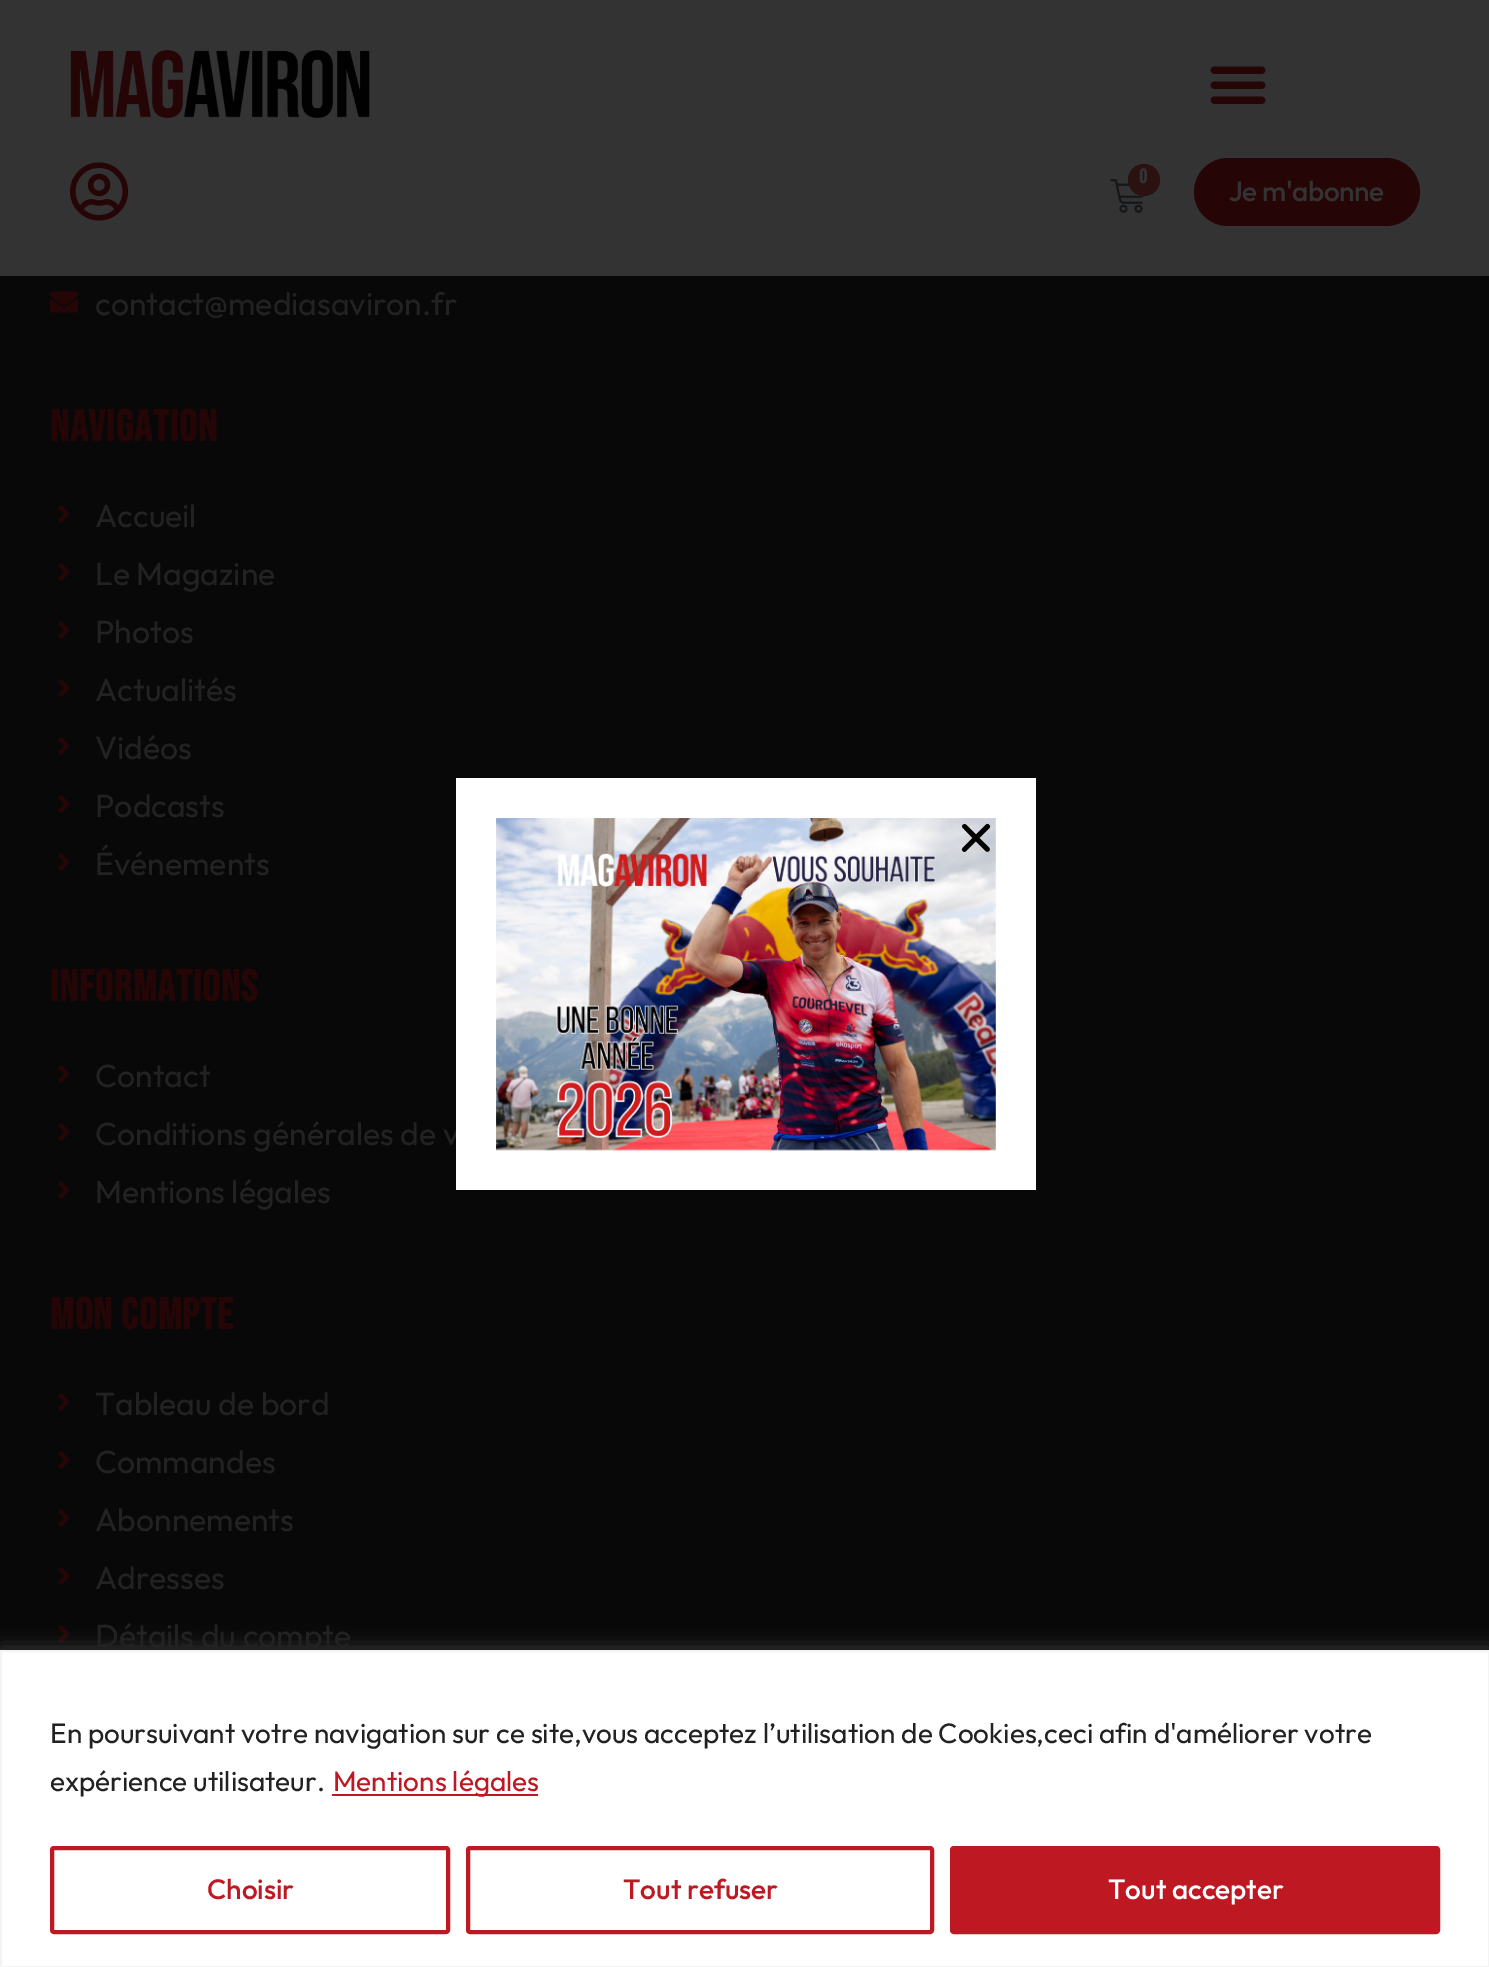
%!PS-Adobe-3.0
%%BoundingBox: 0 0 1489 1967
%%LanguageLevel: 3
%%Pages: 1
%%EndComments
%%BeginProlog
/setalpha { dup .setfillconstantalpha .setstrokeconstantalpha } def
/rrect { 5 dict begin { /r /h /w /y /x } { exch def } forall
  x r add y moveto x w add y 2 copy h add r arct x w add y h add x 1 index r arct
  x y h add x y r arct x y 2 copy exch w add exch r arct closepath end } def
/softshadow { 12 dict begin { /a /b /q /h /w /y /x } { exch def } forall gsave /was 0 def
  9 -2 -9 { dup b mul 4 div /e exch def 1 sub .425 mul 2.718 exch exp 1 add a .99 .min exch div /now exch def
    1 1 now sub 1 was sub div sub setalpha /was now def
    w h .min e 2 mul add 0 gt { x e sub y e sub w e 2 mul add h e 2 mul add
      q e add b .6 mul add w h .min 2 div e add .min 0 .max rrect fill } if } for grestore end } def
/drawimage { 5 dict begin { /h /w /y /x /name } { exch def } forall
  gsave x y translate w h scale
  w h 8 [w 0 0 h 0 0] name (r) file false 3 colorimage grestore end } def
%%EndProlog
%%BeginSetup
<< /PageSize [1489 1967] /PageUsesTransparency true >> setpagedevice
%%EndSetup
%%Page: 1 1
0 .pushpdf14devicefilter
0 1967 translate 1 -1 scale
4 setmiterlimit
0.035 0.031 0.031 setrgbcolor
0 0 1489 1967 rectfill
0.2 setgray
0 0 1489 276 rectfill
(images/1.raw) 70 50 300 68 drawimage
(images/2.raw) 1210 66 56 38 drawimage
(images/3.raw) 70 162 59 59 drawimage
(images/4.raw) 1110 179 35 34 drawimage
0.169 0.067 0.063 setrgbcolor
newpath 1144 180 16 0 360 arc closepath fill
0.149 0.02 0.027 setrgbcolor
1194 158 226 68 34 rrect fill
(images/5.raw) 50 291 28 22 drawimage
(images/6.raw) 58 505 12 18 drawimage
(images/6.raw) 58 563 12 18 drawimage
(images/6.raw) 58 621 12 18 drawimage
(images/6.raw) 58 679 12 18 drawimage
(images/6.raw) 58 737 12 18 drawimage
(images/6.raw) 58 795 12 18 drawimage
(images/6.raw) 58 853 12 18 drawimage
(images/6.raw) 58 1065 12 18 drawimage
(images/6.raw) 58 1123 12 18 drawimage
(images/6.raw) 58 1181 12 18 drawimage
(images/6.raw) 58 1393 12 18 drawimage
(images/6.raw) 58 1451 12 18 drawimage
(images/6.raw) 58 1509 12 18 drawimage
(images/6.raw) 58 1567 12 18 drawimage
(images/6.raw) 58 1625 12 18 drawimage
0.675 0.671 0.671 setrgbcolor
0 1648 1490 318 0 10 0.3 softshadow
/BebasNeue-Bold [20 0 0 -20 0 0] selectfont
0.2 setgray
1139 183 moveto (0) show
/Outfit-Medium [28 0 0 -28 0 0] selectfont
1229 201 moveto -0.4 0 (Je m'abonne) ashow
/Outfit-Regular [32 0 0 -32 0 0] selectfont
0.133 setgray
95 315 moveto (contact@mediasaviron.fr) show
/BebasNeue-Bold [44 0 0 -44 0 0] selectfont
0.149 0.02 0.027 setrgbcolor
50 441 moveto 1 0 (Navigation) ashow
/Outfit-Regular [32 0 0 -32 0 0] selectfont
0.133 setgray
95 527 moveto (Accueil) show
95 585 moveto (Le Magazine) show
95 643 moveto (Photos) show
95 701 moveto (Actualités) show
95 759 moveto (Vidéos) show
95 817 moveto (Podcasts) show
95 875 moveto (Événements) show
/BebasNeue-Bold [44 0 0 -44 0 0] selectfont
0.149 0.02 0.027 setrgbcolor
50 1001 moveto 1 0 (Informations) ashow
/Outfit-Regular [32 0 0 -32 0 0] selectfont
0.133 setgray
95 1087 moveto (Contact) show
95 1145 moveto (Conditions générales de v) show
95 1203 moveto (Mentions légales) show
/BebasNeue-Bold [44 0 0 -44 0 0] selectfont
0.149 0.02 0.027 setrgbcolor
50 1329 moveto 1 0 (Mon compte) ashow
/Outfit-Regular [32 0 0 -32 0 0] selectfont
0.133 setgray
95 1415 moveto (Tableau de bord) show
95 1473 moveto (Commandes) show
95 1531 moveto (Abonnements) show
95 1589 moveto (Adresses) show
95 1647 moveto (Détails du compte) show
1 setgray
456 778 580 412 rectfill
(images/7.raw) 496 818 500 333 drawimage
(images/8.raw) 961 823 30 29 drawimage
newpath 1 1651 moveto 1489 1651 lineto 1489 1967 lineto 1 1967 lineto closepath gsave fill grestore
0.957 setgray
2 setlinewidth
stroke
/Outfit-Regular [28 0 0 -28 0 0] selectfont
0.133 setgray
50 1743 moveto (En poursuivant votre navigation sur ce site,vous acceptez l’utilisation de Cookies,ceci afin d'améliorer votre) show
50 1791 moveto (expérience utilisateur.) show
0.745 0.094 0.137 setrgbcolor
332 1794 206 2 rectfill
333 1791 moveto (Mentions légales) show
4 setlinewidth
52 1848 396 84 2 rrect stroke
/Outfit-Medium [28 0 0 -28 0 0] selectfont
207 1899 moveto (Choisir) show
468 1848 464 84 2 rrect stroke
623 1899 moveto (Tout refuser) show
952 1848 486 84 2 rrect gsave fill grestore
stroke
1 setgray
1108 1899 moveto (Tout accepter) show
.poppdf14devicefilter showpage
%%EOF
